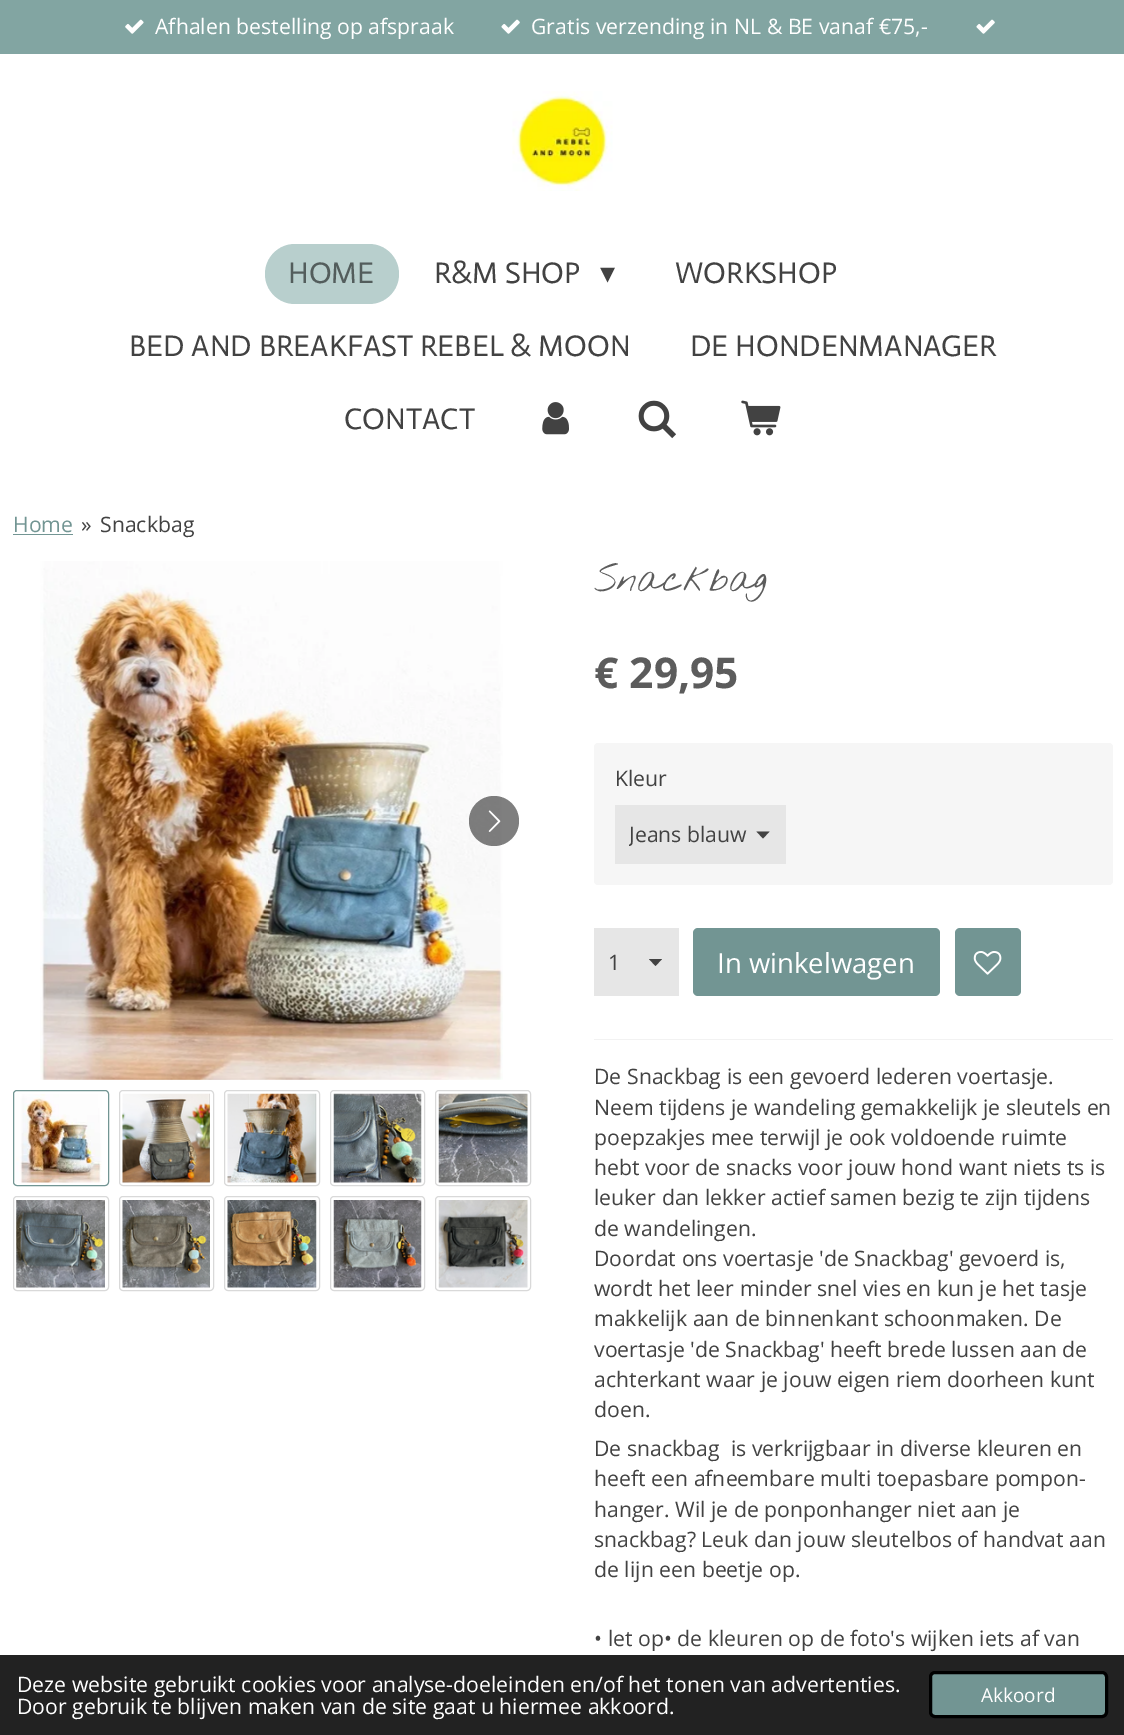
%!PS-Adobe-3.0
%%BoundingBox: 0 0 1124 1735
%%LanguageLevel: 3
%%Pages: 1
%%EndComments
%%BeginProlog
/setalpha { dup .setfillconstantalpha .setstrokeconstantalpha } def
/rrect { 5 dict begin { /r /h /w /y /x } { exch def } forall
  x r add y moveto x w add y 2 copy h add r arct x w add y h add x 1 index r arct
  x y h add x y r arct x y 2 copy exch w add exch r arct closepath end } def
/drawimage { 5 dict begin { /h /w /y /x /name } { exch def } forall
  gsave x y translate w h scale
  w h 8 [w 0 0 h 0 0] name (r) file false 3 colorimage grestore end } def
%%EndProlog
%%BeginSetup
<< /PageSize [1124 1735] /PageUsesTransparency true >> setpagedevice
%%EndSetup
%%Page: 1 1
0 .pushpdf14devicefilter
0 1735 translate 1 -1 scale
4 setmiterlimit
1 setgray
0 0 1124 1735 rectfill
0.51 0.647 0.635 setrgbcolor
0 0 1124 54 rectfill
(images/1.raw) 125 19 19 15 drawimage
(images/2.raw) 501 19 19 15 drawimage
(images/2.raw) 976 19 19 15 drawimage
(images/3.raw) 512 91 101 100 drawimage
0.722 0.812 0.804 setrgbcolor
265 244 134 60 30 rrect fill
(images/4.raw) 542 402 27 33 drawimage
(images/5.raw) 638 400 38 39 drawimage
(images/6.raw) 741 400 40 36 drawimage
0.447 0.584 0.576 setrgbcolor
13 534 60 1 rectfill
(images/7.raw) 40 561 463 519 drawimage
0.5 setalpha
0 setgray
newpath 494 821 25 0 360 arc closepath fill
1 setalpha
(images/8.raw) 488 810 13 22 drawimage
0.447 0.584 0.576 setrgbcolor
13.5 1090.5 95 95 3.5 rrect stroke
(images/9.raw) 16 1094 86 89 drawimage
0.851 setgray
119.5 1090.5 94 95 3.5 rrect stroke
(images/10.raw) 122 1093 88 90 drawimage
224.5 1090.5 95 95 3.5 rrect stroke
(images/11.raw) 227 1093 90 90 drawimage
330.5 1090.5 94 95 3.5 rrect stroke
(images/12.raw) 333 1093 89 90 drawimage
435.5 1090.5 95 95 3.5 rrect stroke
(images/13.raw) 438 1093 90 90 drawimage
13.5 1196.5 95 94 3.5 rrect stroke
(images/14.raw) 16 1200 89 88 drawimage
119.5 1196.5 94 94 3.5 rrect stroke
(images/15.raw) 122 1200 88 88 drawimage
224.5 1196.5 95 94 3.5 rrect stroke
(images/16.raw) 227 1200 90 88 drawimage
330.5 1196.5 94 94 3.5 rrect stroke
(images/17.raw) 333 1200 89 88 drawimage
435.5 1196.5 95 94 3.5 rrect stroke
(images/18.raw) 438 1200 90 88 drawimage
0.965 setgray
594 743 519 142 4 rrect fill
0.902 setgray
615 805 171 59 rectfill
0.259 setgray
newpath 763 838.5 moveto 756.5 831.5 lineto 769.5 831.5 lineto closepath fill
0.902 setgray
594 928 85 68 rectfill
0.259 setgray
newpath 655.5 966 moveto 649 959 lineto 662 959 lineto closepath fill
0.447 0.584 0.576 setrgbcolor
693 928 247 68 5 rrect fill
955 928 66 68 5 rrect fill
(images/19.raw) 973 951 29 24 drawimage
0.949 setgray
594 1039 519 1 rectfill
0.133 setgray
0 1655 1124 80 rectfill
0.447 0.584 0.576 setrgbcolor
930.5 1672.5 176 44 4.5 rrect gsave fill grestore
0 setgray
3 setlinewidth
stroke
/OpenSans-Regular [21.25 0 0 -21.25 0 0] selectfont
1 setgray
155 34 moveto (Afhalen bestelling op afspraak) show
531 34 moveto (Gratis verzending in NL & BE vanaf €75,-) show
/Actor-Regular [30 0 0 -30 0 0] selectfont
0.325 0.365 0.361 setrgbcolor
288 283 moveto (HOME) show
0.259 setgray
434 283 moveto (R&M SHOP) show
/DejaVuSans-Regular [30 0 0 -30 0 0] selectfont
600 283 moveto (▾) show
/Actor-Regular [30 0 0 -30 0 0] selectfont
675 283 moveto (WORKSHOP) show
129 356 moveto (BED AND BREAKFAST REBEL & MOON) show
690 356 moveto (DE HONDENMANAGER) show
344 429 moveto (CONTACT) show
/OpenSans-Regular [21.25 0 0 -21.25 0 0] selectfont
0.447 0.584 0.576 setrgbcolor
13 532 moveto (Home) show
0.259 setgray
81 532 moveto (») show
100 532 moveto (Snackbag) show
/NothingYouCouldDo-Thin [37 0 0 -37 0 0] selectfont
0.361 setgray
594 591 moveto (Snackbag) show
/OpenSans-Bold [42.5 0 0 -42.5 0 0] selectfont
594 688 moveto (€ 29,95) show
/OpenSans-Regular [21.25 0 0 -21.25 0 0] selectfont
0.259 setgray
615 786 moveto (Kleur) show
gsave
629 820 124 29 rectclip
629 842 moveto (Jeans blauw) show
grestore
608 970 moveto (1) show
/OpenSans-Regular [27.5 0 0 -27.5 0 0] selectfont
1 setgray
717 973 moveto (In winkelwagen) show
/OpenSans-Regular [21.25 0 0 -21.25 0 0] selectfont
0.259 setgray
594 1084 moveto (De Snackbag is een gevoerd lederen voertasje.) show
594 1115 moveto (Neem tijdens je wandeling gemakkelijk je sleutels en) show
594 1145 moveto (poepzakjes mee terwijl je ook voldoende ruimte) show
594 1175 moveto (hebt voor de snacks voor jouw hond want niets ts is) show
594 1205 moveto (leuker dan lekker actief samen bezig te zijn tijdens) show
594 1236 moveto (de wandelingen.) show
594 1266 moveto (Doordat ons voertasje 'de Snackbag' gevoerd is,) show
594 1296 moveto (wordt het leer minder snel vies en kun je het tasje) show
594 1326 moveto (makkelijk aan de binnenkant schoonmaken. De) show
594 1357 moveto (voertasje 'de Snackbag' heeft brede lussen aan de) show
594 1387 moveto (achterkant waar je jouw eigen riem doorheen kunt) show
594 1417 moveto (doen.) show
594 1456 moveto (De snackbag  is verkrijgbaar in diverse kleuren en) show
594 1486 moveto (heeft een afneembare multi toepasbare pompon-) show
594 1517 moveto (hanger. Wil je de ponponhanger niet aan je) show
594 1547 moveto (snackbag? Leuk dan jouw sleutelbos of handvat aan) show
594 1577 moveto (de lijn een beetje op.) show
594 1646 moveto (• let op• de kleuren op de foto's wijken iets af van) show
1 setgray
17 1692 moveto (Deze website gebruikt cookies voor analyse-doeleinden en/of het tonen van advertenties.) show
17 1714 moveto (Door gebruik te blijven maken van de site gaat u hiermee akkoord.) show
/OpenSans-Regular [19 0 0 -19 0 0] selectfont
981 1702 moveto (Akkoord) show
.poppdf14devicefilter showpage
%%EOF
